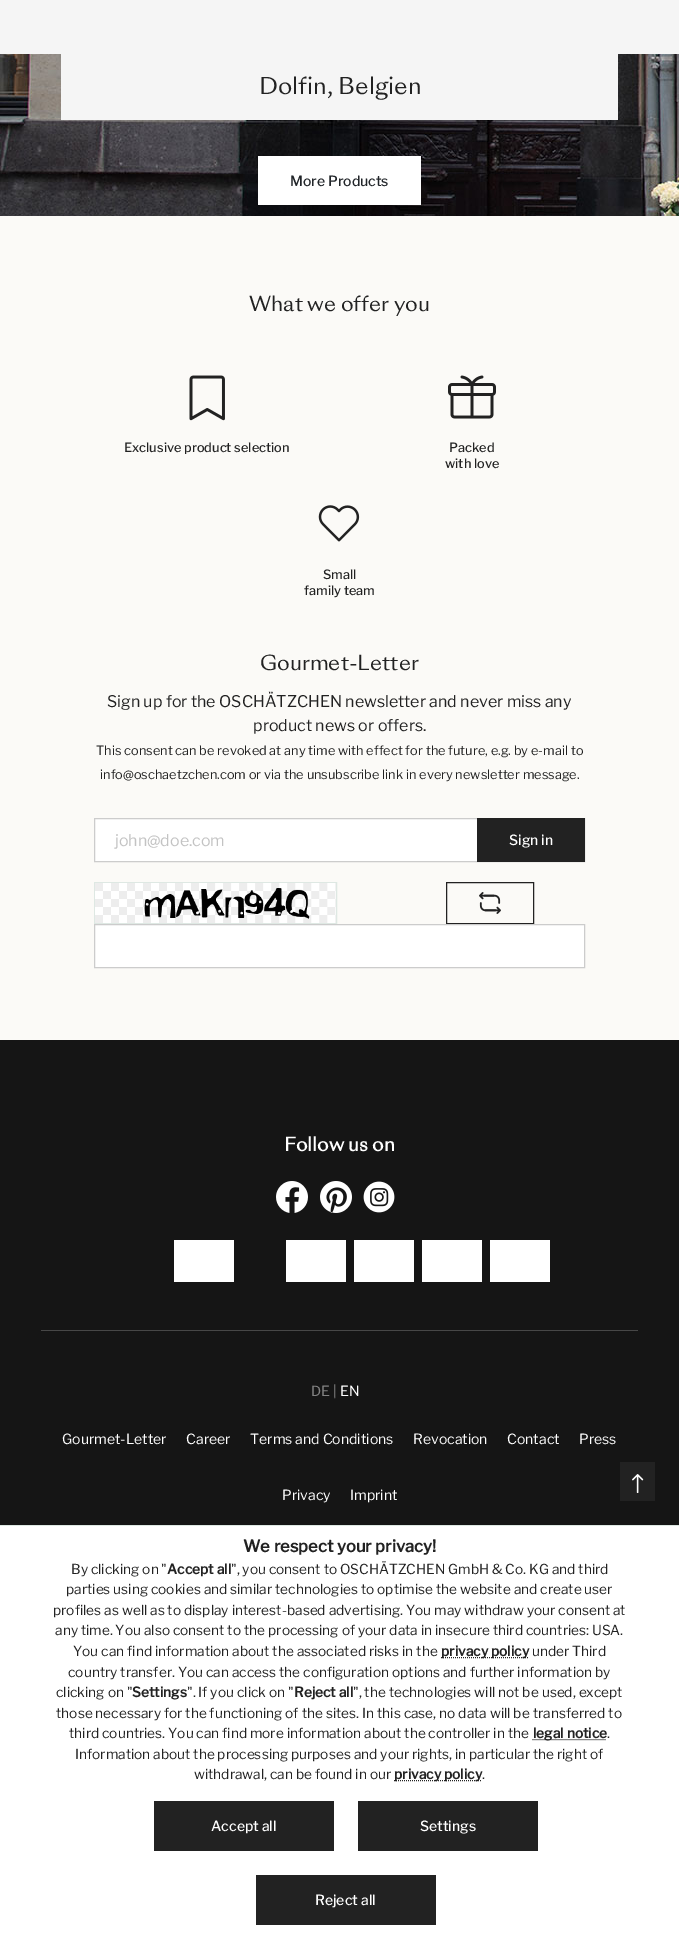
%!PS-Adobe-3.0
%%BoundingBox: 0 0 679 1941
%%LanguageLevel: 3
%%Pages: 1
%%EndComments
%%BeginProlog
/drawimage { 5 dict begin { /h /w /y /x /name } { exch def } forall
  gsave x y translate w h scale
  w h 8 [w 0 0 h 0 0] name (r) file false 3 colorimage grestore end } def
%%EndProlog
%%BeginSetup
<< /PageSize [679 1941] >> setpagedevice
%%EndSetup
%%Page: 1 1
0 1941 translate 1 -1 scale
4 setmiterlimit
0.984 0.98 0.969 setrgbcolor
0 0 679 1941 rectfill
0.961 setgray
0 0 679 54 rectfill
(images/1.raw) 0 54 679 162 drawimage
61 54 557 66 rectfill
1 setgray
258 156 163 49 rectfill
(images/2.raw) 189 375 36 46 drawimage
(images/3.raw) 448 375 48 44 drawimage
(images/4.raw) 318 505 42 37 drawimage
95 819 382 42 rectfill
0.8 setgray
94.5 818.5 490 43 rectstroke
0.133 setgray
477 818 108 44 rectfill
0.871 0.91 0.89 setrgbcolor
94.5 882.5 242 41 rectstroke
(images/5.raw) 95 883 241 40 drawimage
0.133 setgray
446.5 882.5 87 41 rectstroke
(images/6.raw) 479 892 22 22 drawimage
1 setgray
newpath 94.5 924.5 moveto 584.5 924.5 lineto 584.5 967.5 lineto 94.5 967.5 lineto closepath gsave fill grestore
0.8 setgray
stroke
0.082 setgray
0 1040 679 485 rectfill
(images/7.raw) 276 1181 32 32 drawimage
(images/8.raw) 320 1181 32 32 drawimage
(images/9.raw) 363 1181 32 32 drawimage
1 setgray
174 1240 60 42 rectfill
286 1240 60 42 rectfill
354 1240 60 42 rectfill
422 1240 60 42 rectfill
490 1240 60 42 rectfill
0.278 setgray
41 1330 597 1 rectfill
0.133 setgray
620 1462 35 39 rectfill
(images/10.raw) 632 1474 12 19 drawimage
1 setgray
0 1526 679 415 rectfill
0.871 0.91 0.89 setrgbcolor
0 1525 679 1 rectfill
0.133 setgray
[1 1] 0 setdash
newpath 441 1657.5 moveto 529 1657.5 lineto stroke
newpath 532.5 1739.5 moveto 606.5 1739.5 lineto stroke
newpath 394 1780.5 moveto 482 1780.5 lineto stroke
154 1801 180 50 rectfill
358 1801 180 50 rectfill
256 1875 180 50 rectfill
/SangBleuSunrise-Regular [22.5 0 0 -22.5 0 0] selectfont
259 94 moveto (Dolfin, Belgien) show
/LibreFranklin-Thin [14 0 0 -14 0 0] selectfont
0.129 0.145 0.161 setrgbcolor
290 186 moveto (More Products) show
/SangBleuSunrise-Regular [20 0 0 -20 0 0] selectfont
0.133 setgray
249 311 moveto (What we offer you) show
/LibreFranklin-Thin [12.8 0 0 -12.8 0 0] selectfont
124 452 moveto (Exclusive product selection) show
449 452 moveto (Packed) show
445 468 moveto (with love) show
323 579 moveto (Small) show
304 595 moveto (family team) show
/SangBleuSunrise-Regular [20 0 0 -20 0 0] selectfont
260 670 moveto (Gourmet-Letter) show
/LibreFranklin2-Thin [16 0 0 -16 0 0] selectfont
107 707 moveto (Sign up for the OSCHÄTZCHEN newsletter and never miss any) show
253 731 moveto (product news or offers.) show
/LibreFranklin2-Thin [12.8 0 0 -12.8 0 0] selectfont
96 755 moveto (This consent can be revoked at any time with effect for the future, e.g. by e-mail to) show
100 779 moveto (info@oschaetzchen.com or via the unsubscribe link in every newsletter message.) show
/LibreFranklin2-Thin [16 0 0 -16 0 0] selectfont
0.765 setgray
115 846 moveto (john@doe.com) show
/LibreFranklin-Thin [14 0 0 -14 0 0] selectfont
1 setgray
509 845 moveto (Sign in) show
/SangBleuSunrise-Bold [18.25 0 0 -18.25 0 0] selectfont
284 1151 moveto (Follow us on) show
/LibreFranklin2-Thin [14 0 0 -14 0 0] selectfont
0.51 setgray
311 1396 moveto (DE |) show
1 setgray
340 1396 moveto (EN) show
62 1444 moveto (Gourmet-Letter) show
186 1444 moveto (Career) show
250 1444 moveto (Terms and Conditions) show
413 1444 moveto (Revocation) show
507 1444 moveto (Contact) show
579 1444 moveto (Press) show
282 1500 moveto (Privacy) show
350 1500 moveto (Imprint) show
/LibreFranklin-Bold [16.5 0 0 -16.5 0 0] selectfont
0.133 setgray
243 1552 moveto (We respect your privacy!) show
/LibreFranklin2-Thin [13.7 0 0 -13.7 0 0] selectfont
71 1574 moveto (By clicking on ") show
/LibreFranklin-Bold [13.7 0 0 -13.7 0 0] selectfont
167 1574 moveto (Accept all) show
/LibreFranklin2-Thin [13.7 0 0 -13.7 0 0] selectfont
231 1574 moveto (", you consent to OSCHÄTZCHEN GmbH & Co. KG and third) show
66 1594 moveto (parties using cookies and similar technologies to optimise the website and create user) show
53 1615 moveto (profiles as well as to display interest-based advertising. You may withdraw your consent at) show
55 1635 moveto (any time. You also consent to the processing of your data in insecure third countries: USA.) show
73 1656 moveto (You can find information about the associated risks in the) show
/LibreFranklin-Bold [13.7 0 0 -13.7 0 0] selectfont
441 1656 moveto (privacy policy) show
/LibreFranklin2-Thin [13.7 0 0 -13.7 0 0] selectfont
532 1656 moveto (under Third) show
68 1677 moveto (country transfer. You can access the configuration options and further information by) show
56 1697 moveto (clicking on ") show
/LibreFranklin-Bold [13.7 0 0 -13.7 0 0] selectfont
132 1697 moveto (Settings) show
/LibreFranklin2-Thin [13.7 0 0 -13.7 0 0] selectfont
187 1697 moveto (". If you click on ") show
/LibreFranklin-Bold [13.7 0 0 -13.7 0 0] selectfont
294 1697 moveto (Reject all) show
/LibreFranklin2-Thin [13.7 0 0 -13.7 0 0] selectfont
353 1697 moveto (", the technologies will not be used, except) show
56 1718 moveto (those necessary for the functioning of the sites. In this case, no data will be transferred to) show
69 1738 moveto (third countries. You can find more information about the controller in the) show
/LibreFranklin-Bold [13.7 0 0 -13.7 0 0] selectfont
533 1738 moveto (legal notice) show
/LibreFranklin2-Thin [13.7 0 0 -13.7 0 0] selectfont
607 1738 moveto (.) show
75 1759 moveto (Information about the processing purposes and your rights, in particular the right of) show
194 1779 moveto (withdrawal, can be found in our) show
/LibreFranklin-Bold [13.7 0 0 -13.7 0 0] selectfont
394 1779 moveto (privacy policy) show
/LibreFranklin2-Thin [13.7 0 0 -13.7 0 0] selectfont
482 1779 moveto (.) show
/LibreFranklin-Thin [14 0 0 -14 0 0] selectfont
1 setgray
211 1831 moveto (Accept all) show
420 1831 moveto (Settings) show
315 1905 moveto (Reject all) show
showpage
%%EOF
